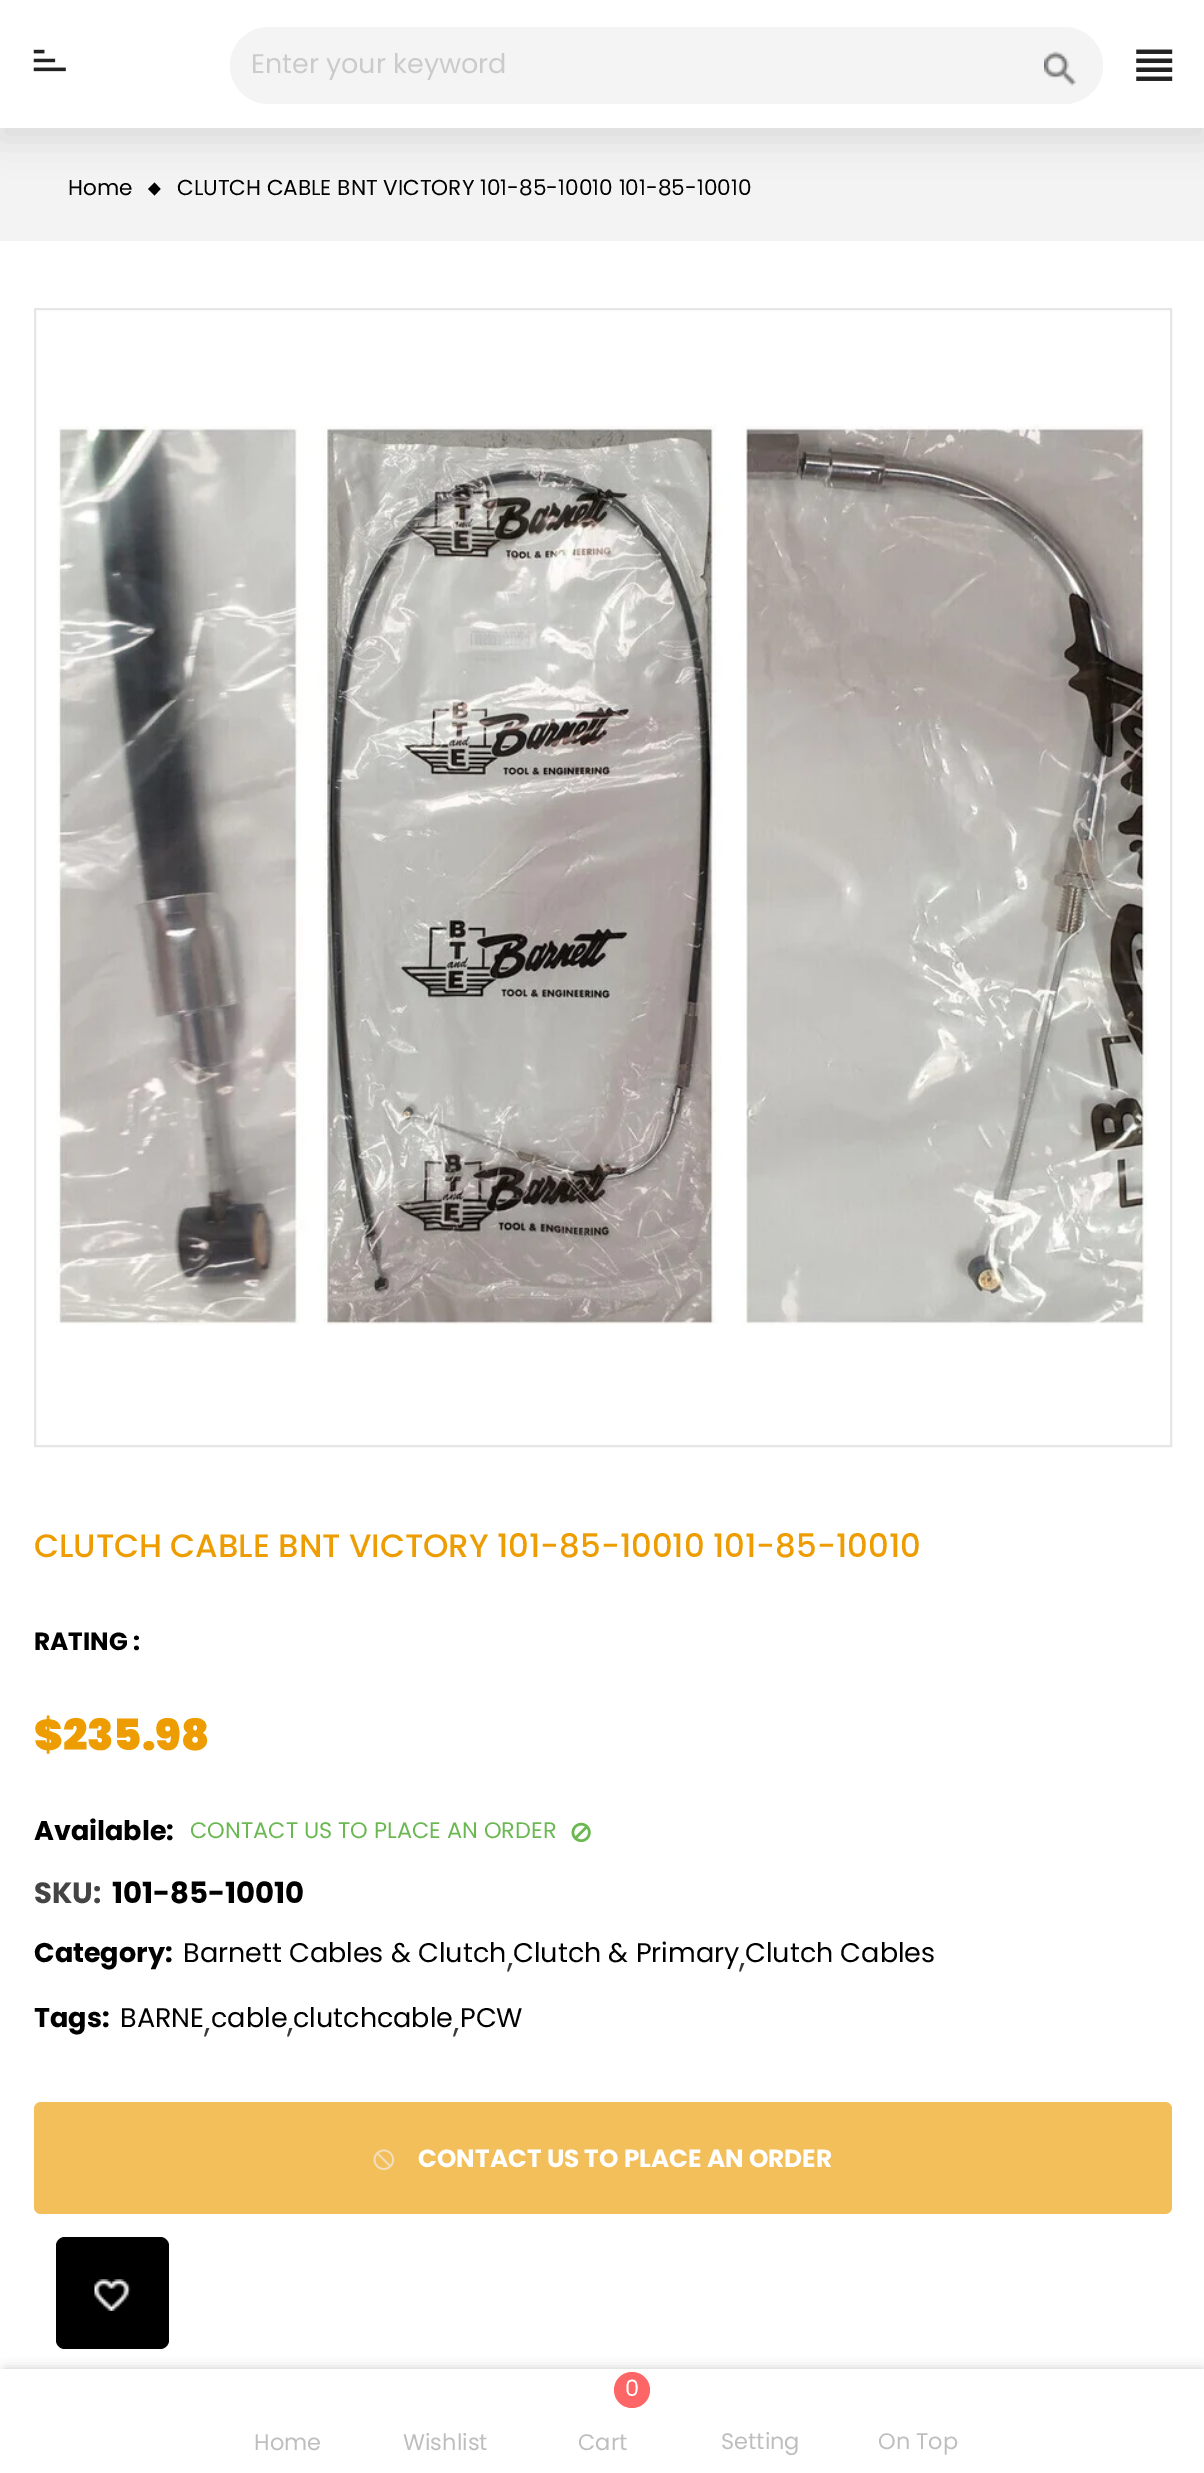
%!PS-Adobe-3.0
%%BoundingBox: 0 0 1204 2473
%%LanguageLevel: 3
%%Pages: 1
%%EndComments
%%BeginProlog
/setalpha { dup .setfillconstantalpha .setstrokeconstantalpha } def
/rrect { 5 dict begin { /r /h /w /y /x } { exch def } forall
  x r add y moveto x w add y 2 copy h add r arct x w add y h add x 1 index r arct
  x y h add x y r arct x y 2 copy exch w add exch r arct closepath end } def
/softshadow { 12 dict begin { /a /b /q /h /w /y /x } { exch def } forall gsave /was 0 def
  9 -2 -9 { dup b mul 4 div /e exch def 1 sub .425 mul 2.718 exch exp 1 add a .99 .min exch div /now exch def
    1 1 now sub 1 was sub div sub setalpha /was now def
    w h .min e 2 mul add 0 gt { x e sub y e sub w e 2 mul add h e 2 mul add
      q e add b .6 mul add w h .min 2 div e add .min 0 .max rrect fill } if } for grestore end } def
/drawimage { 5 dict begin { /h /w /y /x /name } { exch def } forall
  gsave x y translate w h scale
  w h 8 [w 0 0 h 0 0] name (r) file false 3 colorimage grestore end } def
%%EndProlog
%%BeginSetup
<< /PageSize [1204 2473] /PageUsesTransparency true >> setpagedevice
%%EndSetup
%%Page: 1 1
0 .pushpdf14devicefilter
0 2473 translate 1 -1 scale
4 setmiterlimit
1 setgray
0 0 1204 2473 rectfill
0.953 setgray
0 128 1204 113 rectfill
0 setgray
0 11 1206 129 0 17 0.1 softshadow
1 setgray
0 0 1204 128 rectfill
(images/1.raw) 33 49 33 23 drawimage
0.957 setgray
230 27 873 77 38.5 rrect fill
(images/2.raw) 1044 51 32 35 drawimage
(images/3.raw) 1136 49 37 32 drawimage
0 setgray
newpath 154.5 182.5 moveto 160.5 189 lineto 154.5 195.5 lineto 148 189 lineto closepath fill
0.902 setgray
2 setlinewidth
35 309 1136 1137 rectstroke
(images/4.raw) 56 424 1094 902 drawimage
(images/5.raw) 571 1822 20 21 drawimage
0.953 0.749 0.353 setrgbcolor
34 2102 1138 112 7 rrect fill
(images/6.raw) 373 2149 22 21 drawimage
0 setgray
56 2237 113 112 9 rrect fill
(images/7.raw) 94 2279 37 32 drawimage
5 2369 1197 97 0 5.5 0.2 softshadow
1 setgray
0 2369 1204 104 rectfill
0.992 0.4 0.4 setrgbcolor
newpath 632 2390 18 0 360 arc closepath fill
/Poppins-Regular [27 0 0 -27 0 0] selectfont
0.8 0.796 0.796 setrgbcolor
251 73 moveto (Enter your keyword) show
/Poppins-Regular [21.6 0 0 -21.6 0 0] selectfont
0 setgray
68 195 moveto (Home) show
177 195 moveto (CLUTCH CABLE BNT VICTORY 101-85-10010 101-85-10010) show
/Poppins-Medium [32.4 0 0 -32.4 0 0] selectfont
0.929 0.616 0.004 setrgbcolor
34 1557 moveto (CLUTCH CABLE BNT VICTORY 101-85-10010 101-85-10010) show
/Poppins-Bold [24.75 0 0 -24.75 0 0] selectfont
0 setgray
34 1650 moveto (RATING :) show
/Poppins-Black [43 0 0 -43 0 0] selectfont
0.929 0.616 0.004 setrgbcolor
34 1750 moveto ($235.98) show
/Poppins-Bold [27 0 0 -27 0 0] selectfont
0 setgray
34 1840 moveto (Available:) show
/Poppins-Regular [22.5 0 0 -22.5 0 0] selectfont
0.42 0.722 0.325 setrgbcolor
190 1838 moveto (CONTACT US TO PLACE AN ORDER) show
/Poppins-Bold [29.25 0 0 -29.25 0 0] selectfont
0.267 setgray
34 1903 moveto (SKU:) show
0 setgray
112 1903 moveto (101-85-10010) show
/Poppins-Bold [27 0 0 -27 0 0] selectfont
34 1962 moveto (Category:) show
/Poppins-Regular [27 0 0 -27 0 0] selectfont
183 1962 moveto (Barnett Cables & Clutch) show
513 1962 moveto (Clutch & Primary) show
745 1962 moveto (Clutch Cables) show
/Poppins-Regular [32 0 0 -32 0 0] selectfont
0.22 setgray
507 1967 moveto (,) show
739 1967 moveto (,) show
/Poppins-Bold [27 0 0 -27 0 0] selectfont
0 setgray
34 2027 moveto (Tags:) show
/Poppins-Regular [27 0 0 -27 0 0] selectfont
120 2027 moveto (BARNE) show
211 2027 moveto (cable) show
293 2027 moveto (clutchcable) show
460 2027 moveto (PCW) show
/Poppins-Regular [32 0 0 -32 0 0] selectfont
0.22 setgray
204 2032 moveto (,) show
287 2032 moveto (,) show
453 2032 moveto (,) show
/Poppins-Bold [24.75 0 0 -24.75 0 0] selectfont
1 setgray
418 2167 moveto (CONTACT US TO PLACE AN ORDER) show
/Poppins-Regular [22.5 0 0 -22.5 0 0] selectfont
0.745 setgray
254 2450 moveto (Home) show
403 2450 moveto (Wishlist) show
1 setgray
625 2396 moveto (0) show
0.745 setgray
578 2450 moveto (Cart) show
721 2449 moveto (Setting) show
878 2449 moveto (On Top) show
.poppdf14devicefilter showpage
%%EOF
